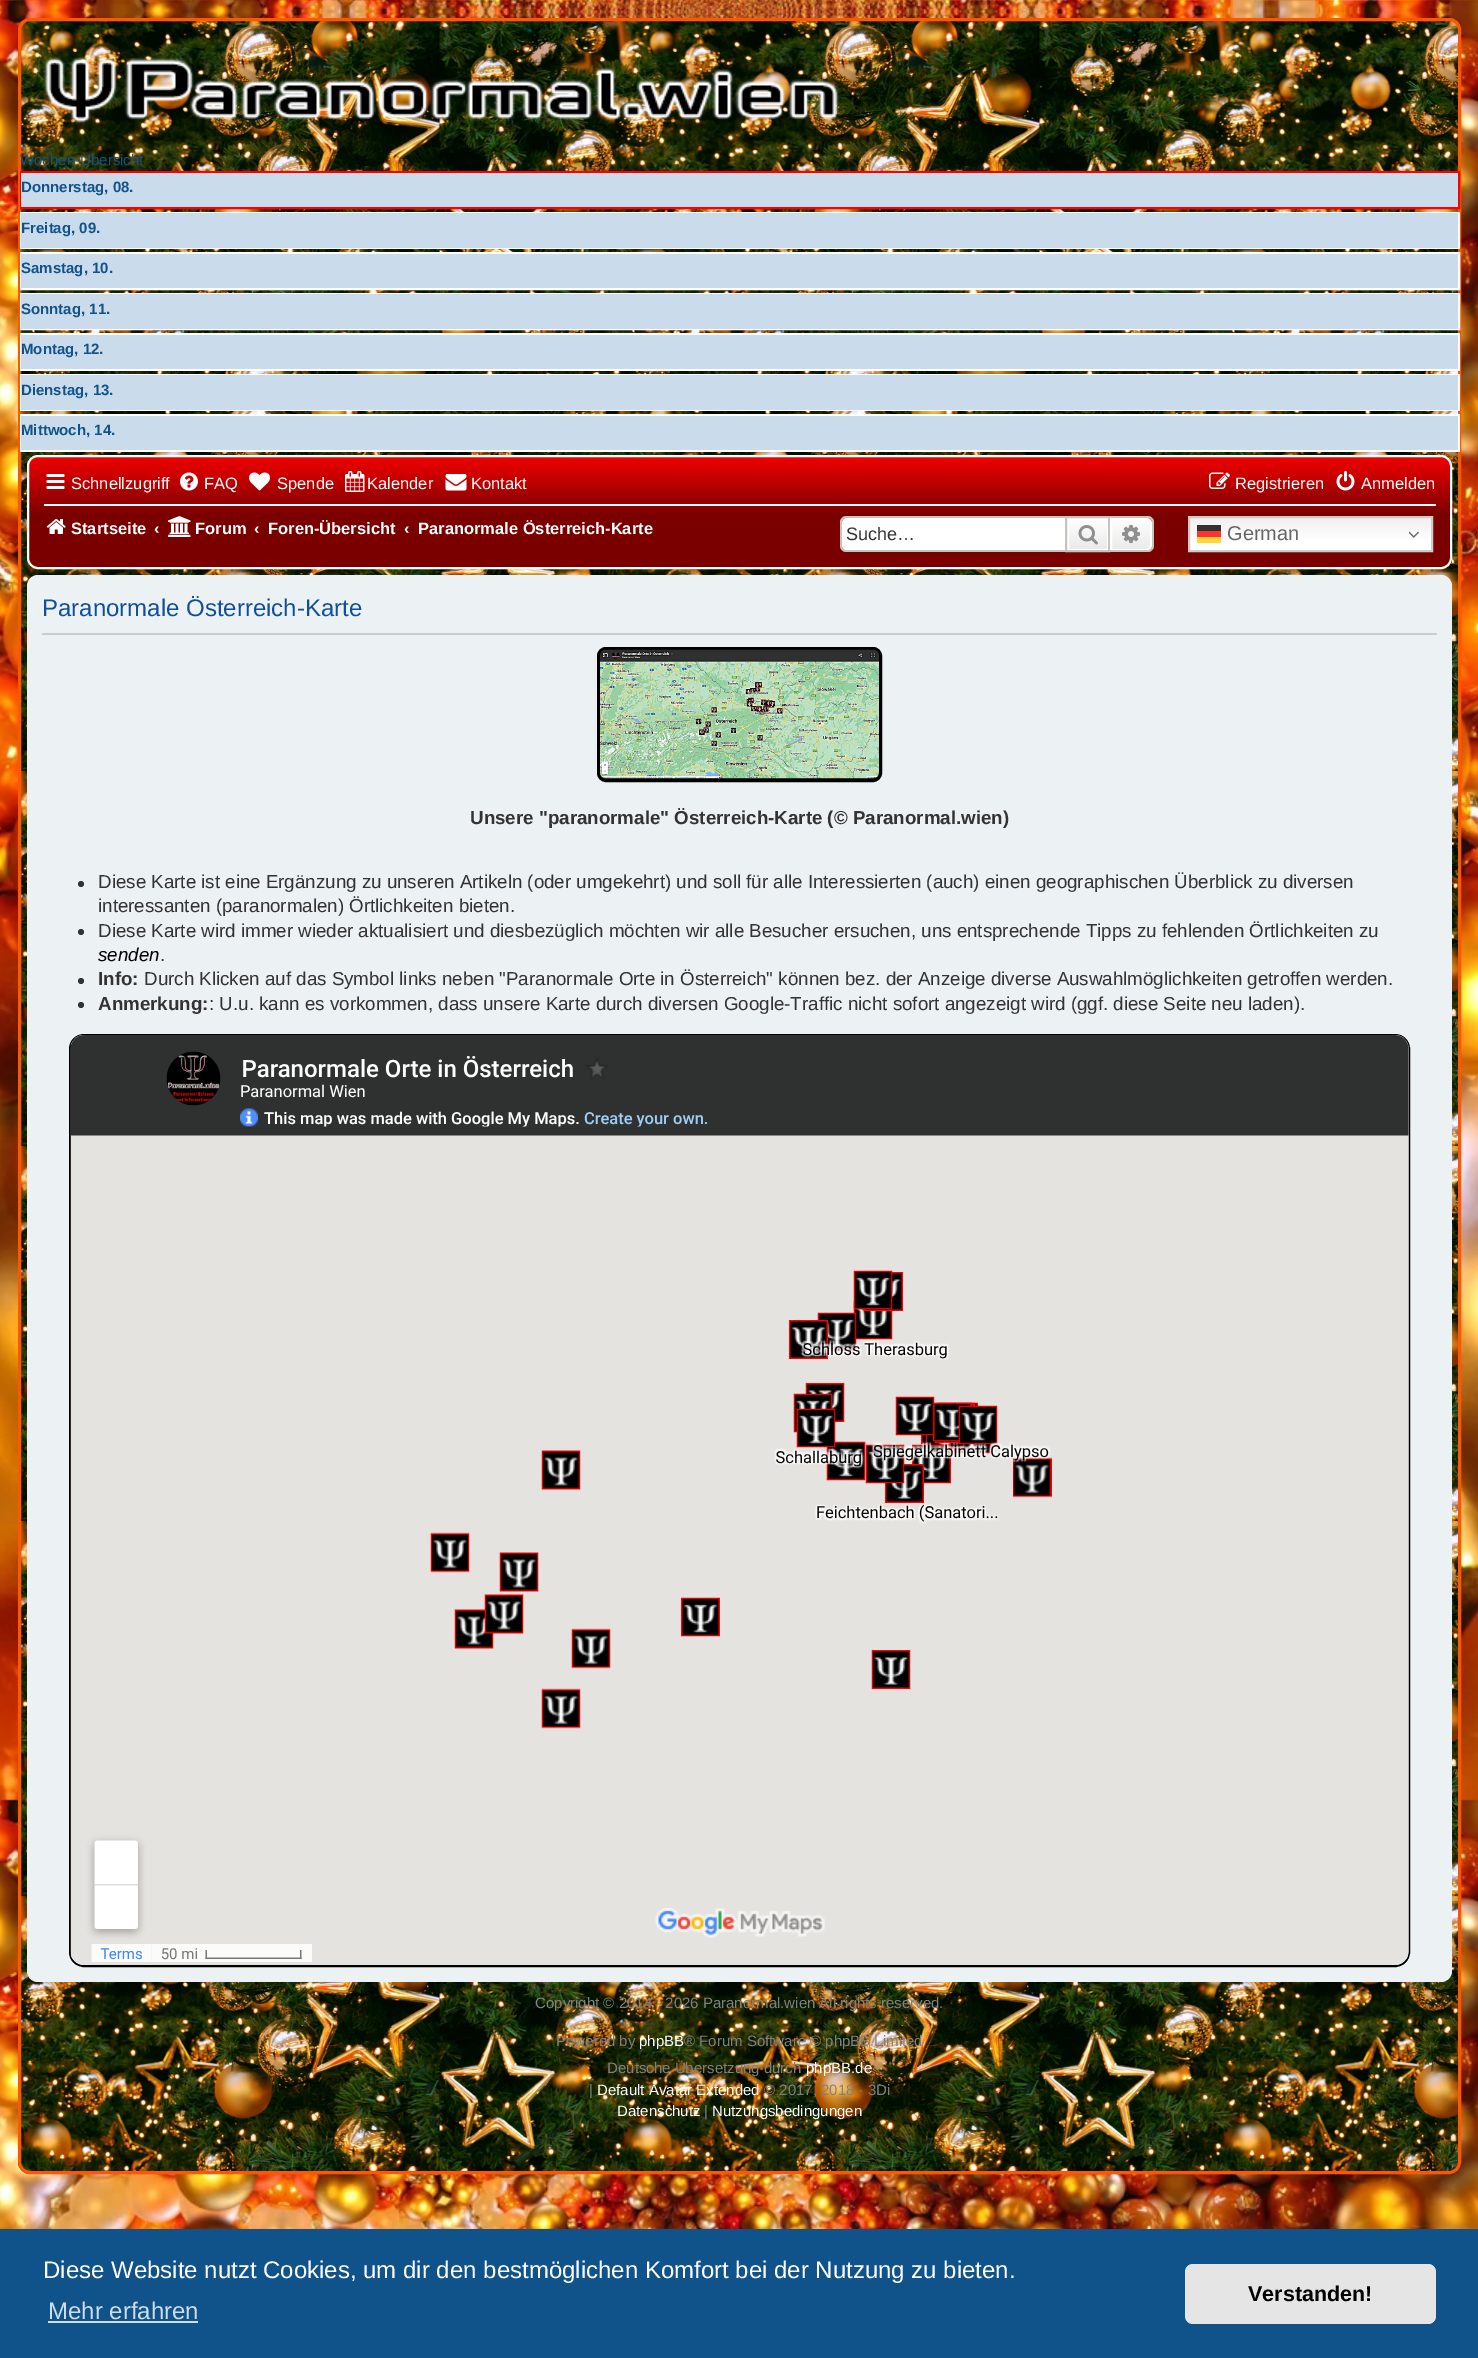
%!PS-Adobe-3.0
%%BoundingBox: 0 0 1478 2358
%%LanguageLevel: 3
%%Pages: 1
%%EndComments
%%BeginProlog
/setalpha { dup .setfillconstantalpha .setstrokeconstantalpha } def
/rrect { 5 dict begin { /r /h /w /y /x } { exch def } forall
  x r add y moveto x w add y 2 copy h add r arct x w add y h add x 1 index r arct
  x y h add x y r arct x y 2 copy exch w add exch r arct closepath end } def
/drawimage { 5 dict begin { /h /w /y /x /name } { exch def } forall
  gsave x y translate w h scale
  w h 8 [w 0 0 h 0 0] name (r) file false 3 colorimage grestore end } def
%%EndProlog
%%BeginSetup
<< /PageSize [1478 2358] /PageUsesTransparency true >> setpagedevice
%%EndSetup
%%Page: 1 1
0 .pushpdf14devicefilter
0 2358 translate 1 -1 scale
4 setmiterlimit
1 setgray
0 0 1478 2358 rectfill
(images/1.raw) 0 2192 1478 37 drawimage
(images/2.raw) 0 0 1478 2192 drawimage
(images/3.raw) 18 18 1443 2156 drawimage
1 0.337 0.016 setrgbcolor
3 setlinewidth
19.5 19.5 1440 2153 10.5 rrect stroke
(images/4.raw) 43 57 796 66 drawimage
1 0 0 setrgbcolor
2 setlinewidth
21 172 1438 36 rectstroke
0.792 0.863 0.922 setrgbcolor
21 173 1437 34 rectfill
1 setgray
20 212 1440 37 rectfill
0.792 0.863 0.922 setrgbcolor
21 213 1437 35 rectfill
1 setgray
21 253 1438 36 rectstroke
0.792 0.863 0.922 setrgbcolor
21 254 1437 34 rectfill
1 setgray
21 294 1438 35 rectstroke
0.792 0.863 0.922 setrgbcolor
21 294 1437 35 rectfill
1 setgray
20 333 1440 38 rectfill
0.792 0.863 0.922 setrgbcolor
21 335 1437 34 rectfill
1 setgray
20 374 1440 37 rectfill
0.792 0.863 0.922 setrgbcolor
21 375 1437 35 rectfill
1 setgray
20 414 1440 38 rectfill
0.792 0.863 0.922 setrgbcolor
21 416 1437 34 rectfill
gsave
27 455 1425 114 11 rrect clip newpath
gsave newpath 27 456 moveto 1452 456 lineto 1452 567 lineto 27 567 lineto closepath clip newpath
<< /ShadingType 2 /ColorSpace /DeviceRGB /Coords [740 456 740 567] /Extend [true true] /Function << /FunctionType 3 /Domain [0 1] /Functions [<< /FunctionType 2 /Domain [0 1] /C0 [0.949 0 0] /C1 [0.478 0 0] /N 1 >> << /FunctionType 2 /Domain [0 1] /C0 [0.478 0 0] /C1 [0.478 0 0] /N 1 >>] /Bounds [0.53] /Encode [0 1 0 1] >> >> shfill grestore
grestore
1 setgray
28 456 1423 112 10 rrect stroke
(images/5.raw) 46 474 19 15 drawimage
(images/6.raw) 180 472 18 19 drawimage
(images/7.raw) 249 472 21 19 drawimage
(images/8.raw) 345 471 20 21 drawimage
(images/9.raw) 445 474 22 17 drawimage
(images/10.raw) 1209 472 21 17 drawimage
(images/11.raw) 1336 471 19 20 drawimage
44 504 1392 2 rectfill
(images/12.raw) 46 519 20 15 drawimage
(images/13.raw) 168 516 23 21 drawimage
newpath 847 518 moveto 1065 518 lineto 1065 551 lineto 847 551 lineto 844 551 842 549 842 546 curveto 842 523 lineto 842 520 844 518 847 518 curveto closepath fill
0.78 0.765 0.749 setrgbcolor
newpath 846 516 moveto 1065 516 lineto 1065 552 lineto 846 552 lineto 843 552 840 549 840 546 curveto 840 522 lineto 840 519 843 516 846 516 curveto closepath 846 518 moveto 1065 518 lineto 1065 550 lineto 846 550 lineto 844 550 842 548 842 546 curveto 842 522 lineto 842 520 844 518 846 518 curveto closepath eofill
gsave newpath 1069 520 moveto 1107 520 lineto 1107 549 lineto 1069 549 lineto closepath clip newpath
<< /ShadingType 2 /ColorSpace /DeviceRGB /Coords [1088 518 1088 551] /Extend [true true] /Function << /FunctionType 2 /Domain [0 1] /C0 [1 1 1] /C1 [0.914 0.914 0.914] /N 1 >> >> shfill grestore
1 setgray
1068 519 40 31 rectstroke
0.78 0.765 0.749 setrgbcolor
1066 517 43 34 rectstroke
(images/14.raw) 1078 525 20 20 drawimage
gsave newpath 1111 519 moveto 1147 519 lineto 1149 519 1151 521 1151 523 curveto 1151 546 lineto 1151 548 1149 550 1147 550 curveto 1111 550 lineto closepath clip newpath
<< /ShadingType 2 /ColorSpace /DeviceRGB /Coords [1131 518 1131 551] /Extend [true true] /Function << /FunctionType 2 /Domain [0 1] /C0 [1 1 1] /C1 [0.914 0.914 0.914] /N 1 >> >> shfill grestore
1 setgray
newpath 1111 519 moveto 1147 519 lineto 1149 519 1151 521 1151 523 curveto 1151 546 lineto 1151 548 1149 550 1147 550 curveto 1111 550 lineto closepath stroke
0.78 0.765 0.749 setrgbcolor
newpath 1110 516 moveto 1148 516 lineto 1151 516 1154 519 1154 522 curveto 1154 546 lineto 1154 549 1151 552 1148 552 curveto 1110 552 lineto closepath 1110 518 moveto 1148 518 lineto 1150 518 1152 520 1152 522 curveto 1152 546 lineto 1152 548 1150 550 1148 550 curveto 1110 550 lineto closepath eofill
(images/15.raw) 1122 525 18 18 drawimage
gsave newpath 1190 518 moveto 1431 518 lineto 1431 550 lineto 1190 550 lineto closepath clip newpath
<< /ShadingType 2 /ColorSpace /DeviceRGB /Coords [1310 516 1310 552] /Extend [true true] /Function << /FunctionType 3 /Domain [0 1] /Functions [<< /FunctionType 2 /Domain [0 1] /C0 [0.937 0.937 0.937] /C1 [1 1 1] /N 1 >> << /FunctionType 2 /Domain [0 1] /C0 [1 1 1] /C1 [1 1 1] /N 1 >>] /Bounds [0.7] /Encode [0 1 0 1] >> >> shfill grestore
0.8 setgray
1189 517 243 34 rectstroke
0.8 setalpha
0 setgray
1197 525 24 6 rectfill
1 0 0 setrgbcolor
1197 531 24 6 rectfill
1 setalpha
(images/16.raw) 1409 531 10 7 drawimage
1 0.839 0.2 setrgbcolor
1197 537 24 6 rectfill
0.925 0.945 0.953 setrgbcolor
27 575 1425 1407 11 rrect fill
0.8 setgray
42 633 1395 2 rectfill
0 setgray
598.5 648.5 282 132 7.5 rrect gsave fill grestore
3 setlinewidth
stroke
(images/17.raw) 600 649 279 130 drawimage
0.2 setgray
newpath 81 884 3 0 360 arc closepath fill
newpath 81 932 3 0 360 arc closepath fill
newpath 81 981 3 0 360 arc closepath fill
newpath 81 1005 3 0 360 arc closepath fill
0 setgray
2 setlinewidth
70 1035 1339 931 14 rrect stroke
(images/18.raw) 70 1035 1339 930 drawimage
0.059 0.325 0.541 setrgbcolor
0 2229 1478 129 rectfill
0.812 0.867 0.91 setrgbcolor
48 2321 150 2 rectfill
0.898 setgray
1185 2264 251 60 8 rrect fill
/LiberationSans-Regular [15 0 0 -15 0 0] selectfont
0.063 0.322 0.537 setrgbcolor
20 165 moveto (Wochen-Übersicht) show
/LiberationSans-Bold [15 0 0 -15 0 0] selectfont
21 192 moveto (Donnerstag, 08.) show
21 233 moveto (Freitag, 09.) show
21 273 moveto (Samstag, 10.) show
21 314 moveto (Sonntag, 11.) show
21 354 moveto (Montag, 12.) show
21 395 moveto (Dienstag, 13.) show
21 435 moveto (Mittwoch, 14.) show
/LiberationSans-Regular [16.5 0 0 -16.5 0 0] selectfont
1 setgray
71 489 moveto (Schnellzugriff) show
204 489 moveto (FAQ) show
277 489 moveto (Spende) show
367 489 moveto (Kalender) show
471 489 moveto (Kontakt) show
1235 489 moveto (Registrieren) show
1361 489 moveto (Anmelden) show
/LiberationSans-Bold [16.5 0 0 -16.5 0 0] selectfont
71 534 moveto (Startseite) show
154 534 moveto (‹) show
195 534 moveto (Forum) show
254 534 moveto (‹) show
268 534 moveto (Foren-Übersicht) show
404 534 moveto (‹) show
418 534 moveto (Paranormale Österreich-Karte) show
/LiberationSans-Regular [18 0 0 -18 0 0] selectfont
0.2 setgray
846 540 moveto (Suche…) show
/LiberationSans-Regular [20 0 0 -20 0 0] selectfont
0.4 setgray
1227 540 moveto (German) show
/LiberationSans-Regular [24 0 0 -24 0 0] selectfont
0.067 0.314 0.596 setrgbcolor
42 616 moveto (Paranormale Österreich-Karte) show
/LiberationSans-Bold [18.75 0 0 -18.75 0 0] selectfont
0.2 setgray
470 824 moveto (Unsere "paranormale" Österreich-Karte \(© Paranormal.wien\)) show
/LiberationSans-Regular [18.75 0 0 -18.75 0 0] selectfont
98 888 moveto (Diese Karte ist eine Ergänzung zu unseren Artikeln \(oder umgekehrt\) und soll für alle Interessierten \(auch\) einen geographischen Überblick zu diversen) show
98 912 moveto (interessanten \(paranormalen\) Örtlichkeiten bieten.) show
98 937 moveto (Diese Karte wird immer wieder aktualisiert und diesbezüglich möchten wir alle Besucher ersuchen, uns entsprechende Tipps zu fehlenden Örtlichkeiten zu) show
/LiberationSans-Italic [18.75 0 0 -18.75 0 0] selectfont
0 setgray
98 961 moveto (senden) show
/LiberationSans-Regular [18.75 0 0 -18.75 0 0] selectfont
0.2 setgray
160 961 moveto (.) show
/LiberationSans-Bold [18.75 0 0 -18.75 0 0] selectfont
98 985 moveto (Info:) show
/LiberationSans-Regular [18.75 0 0 -18.75 0 0] selectfont
144 985 moveto (Durch Klicken auf das Symbol links neben "Paranormale Orte in Österreich" können bez. der Anzeige diverse Auswahlmöglichkeiten getroffen werden.) show
/LiberationSans-Bold [18.75 0 0 -18.75 0 0] selectfont
98 1010 moveto (Anmerkung:) show
/LiberationSans-Regular [18.75 0 0 -18.75 0 0] selectfont
209 1010 moveto (: U.u. kann es vorkommen, dass unsere Karte durch diversen Google-Traffic nicht sofort angezeigt wird \(ggf. diese Seite neu laden\).) show
/LiberationSans-Regular [15 0 0 -15 0 0] selectfont
0.502 setgray
535 2008 moveto (Copyright © 2014 - 2026 Paranormal.wien All rights reserved.) show
556 2046 moveto (Powered by) show
1 setgray
639 2046 moveto (phpBB) show
0.502 setgray
684 2046 moveto (® Forum Software © phpBB Limited) show
607 2073 moveto (Deutsche Übersetzung durch) show
1 setgray
806 2073 moveto (phpBB.de) show
0.502 setgray
589 2095 moveto (|) show
1 setgray
597 2095 moveto (Default Avatar Extended) show
0.502 setgray
764 2095 moveto (© 2017, 2018 - 3Di) show
1 setgray
617 2116 moveto (Datenschutz) show
0.502 setgray
704 2116 moveto (|) show
1 setgray
712 2116 moveto (Nutzungsbedingungen) show
/LiberationSans-Regular [24 0 0 -24 0 0] selectfont
43 2278 moveto (Diese Website nutzt Cookies, um dir den bestmöglichen Komfort bei der Nutzung zu bieten.) show
0.812 0.867 0.91 setrgbcolor
48 2319 moveto (Mehr erfahren) show
/LiberationSans-Bold [21.5 0 0 -21.5 0 0] selectfont
0 setgray
1248 2301 moveto (Verstanden!) show
.poppdf14devicefilter showpage
%%EOF
